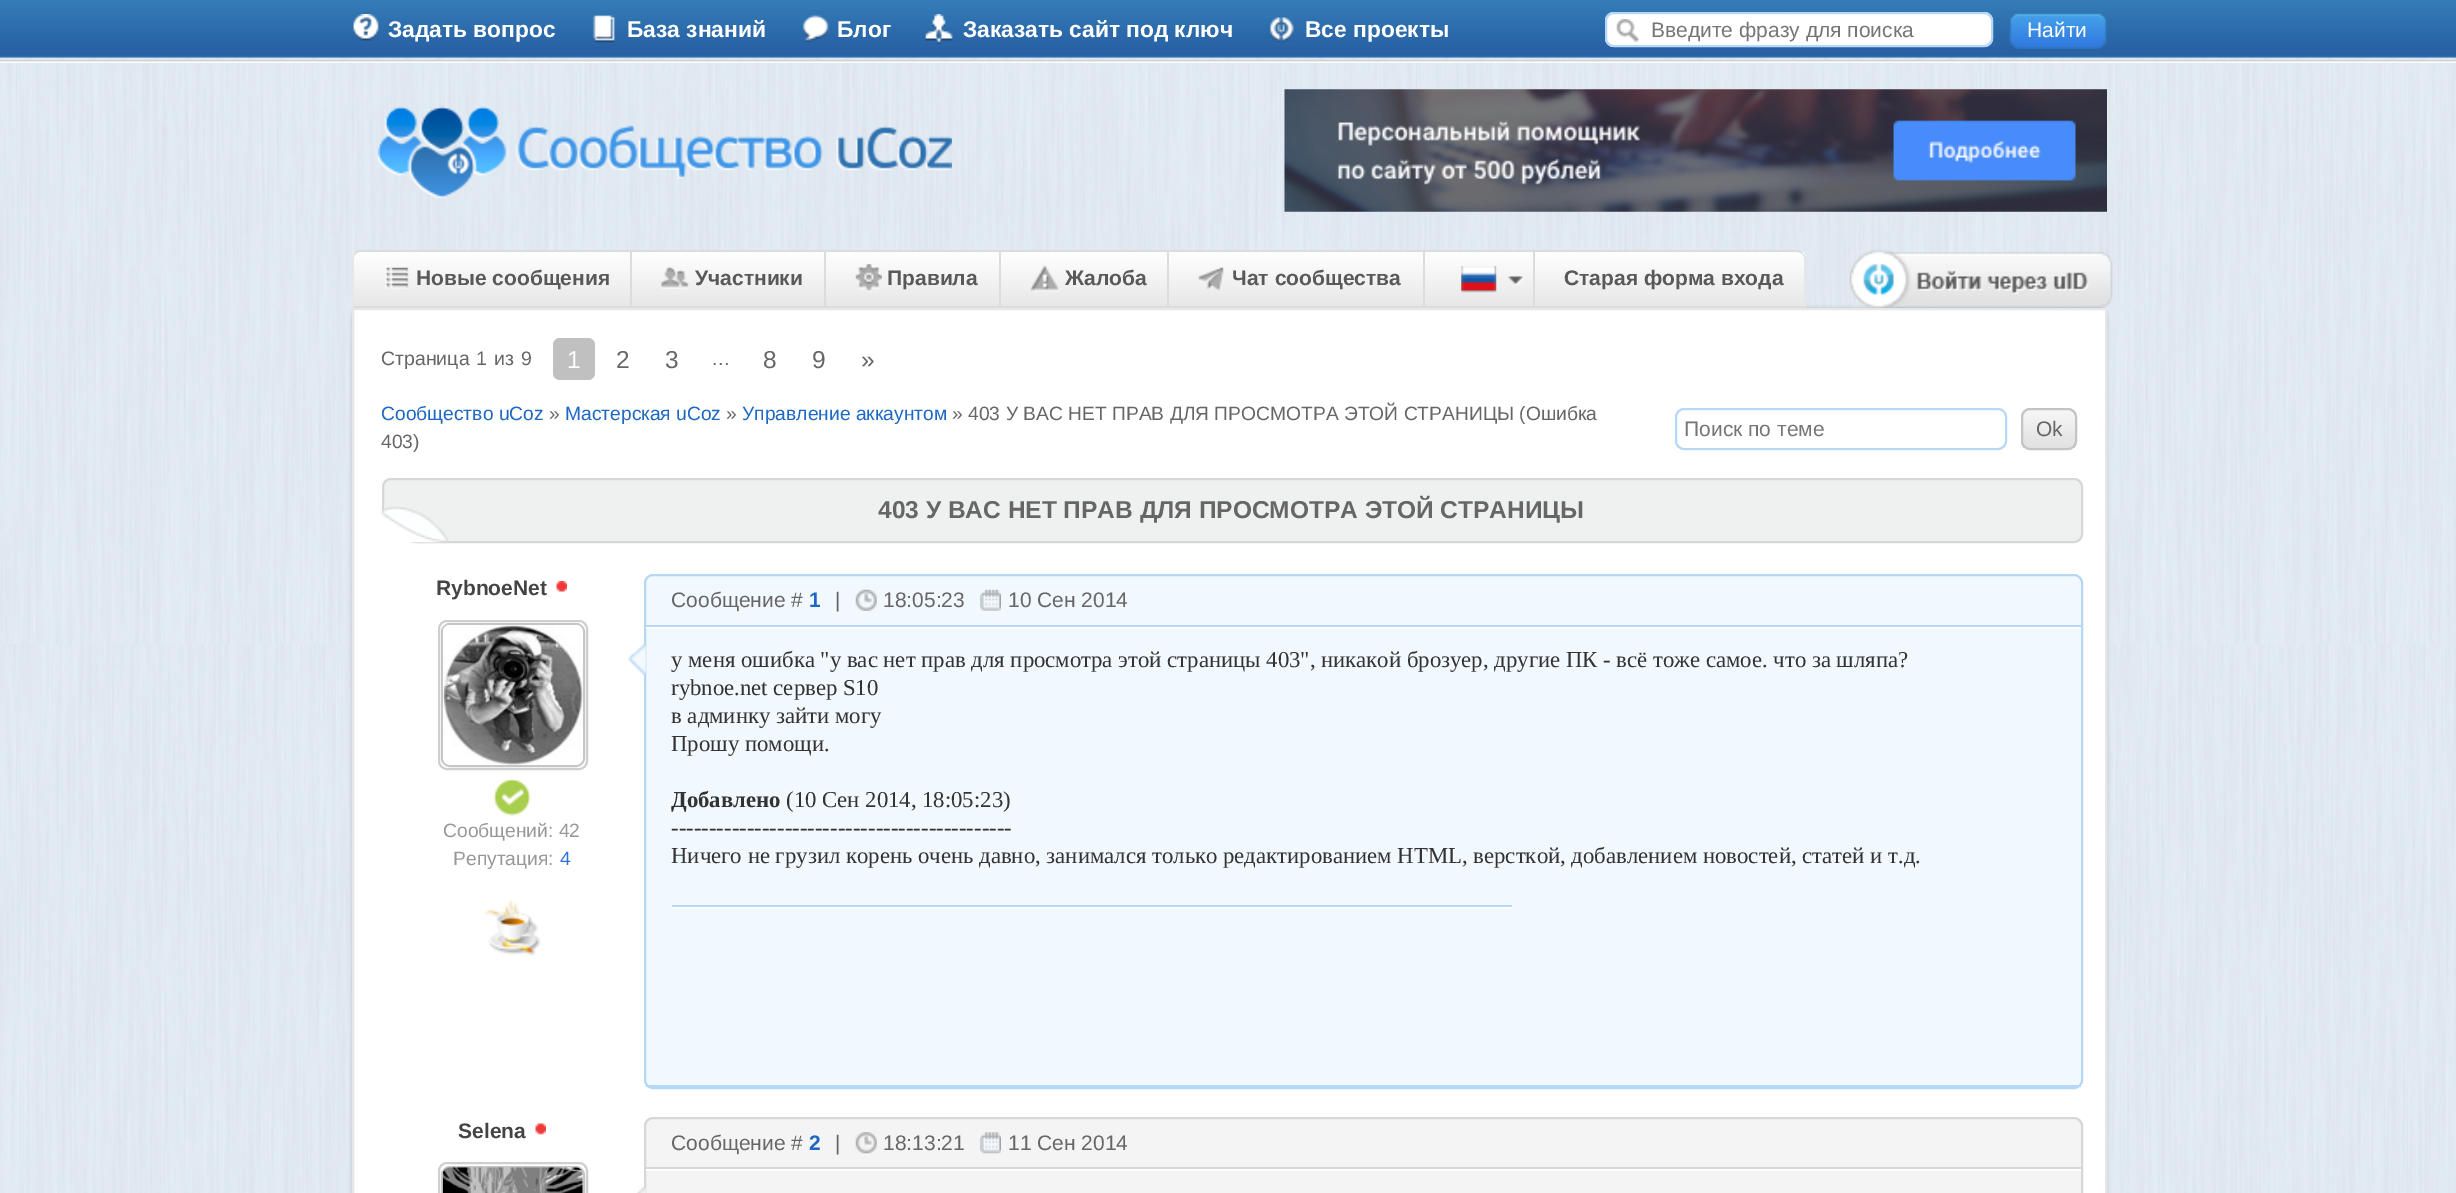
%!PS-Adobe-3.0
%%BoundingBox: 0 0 2456 1193
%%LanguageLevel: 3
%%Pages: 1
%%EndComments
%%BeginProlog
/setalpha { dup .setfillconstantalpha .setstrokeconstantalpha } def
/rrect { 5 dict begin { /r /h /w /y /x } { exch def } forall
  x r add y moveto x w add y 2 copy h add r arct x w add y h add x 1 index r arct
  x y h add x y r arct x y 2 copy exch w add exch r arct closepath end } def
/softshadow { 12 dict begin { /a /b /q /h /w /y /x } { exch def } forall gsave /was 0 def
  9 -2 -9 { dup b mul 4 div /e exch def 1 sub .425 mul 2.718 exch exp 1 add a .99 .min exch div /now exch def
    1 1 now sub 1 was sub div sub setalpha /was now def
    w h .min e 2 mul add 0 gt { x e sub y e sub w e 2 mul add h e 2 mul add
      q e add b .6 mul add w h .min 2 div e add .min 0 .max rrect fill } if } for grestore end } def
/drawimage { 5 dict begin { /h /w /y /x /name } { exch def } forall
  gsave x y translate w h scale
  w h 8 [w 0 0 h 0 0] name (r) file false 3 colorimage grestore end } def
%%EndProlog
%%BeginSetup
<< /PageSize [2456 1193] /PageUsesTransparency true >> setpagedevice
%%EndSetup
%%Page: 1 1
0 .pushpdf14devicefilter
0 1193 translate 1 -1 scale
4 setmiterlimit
1 setgray
0 0 2456 1193 rectfill
(images/1.raw) 0 63 2456 1130 drawimage
(images/2.raw) 0 0 2456 63 drawimage
(images/3.raw) 353 14 26 27 drawimage
(images/4.raw) 592 15 23 28 drawimage
(images/5.raw) 802 15 27 28 drawimage
(images/6.raw) 925 14 28 30 drawimage
(images/7.raw) 1270 17 24 26 drawimage
1605 12 388 35 9 rrect fill
(images/8.raw) 1616 19 24 23 drawimage
0.714 0.847 0.965 setrgbcolor
2 setlinewidth
1606 13 386 33 8 rrect stroke
(images/9.raw) 2009 13 98 36 drawimage
(images/10.raw) 378 106 574 92 drawimage
(images/11.raw) 1284 89 823 123 drawimage
0 setgray
352 308 1755 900 9 2 0.18 softshadow
gsave
newpath 361 250 moveto 632 250 lineto 632 308 lineto 352 308 lineto 352 259 lineto 352 254 356 250 361 250 curveto closepath clip newpath
gsave newpath 352 252 moveto 630 252 lineto 630 306 lineto 352 306 lineto closepath clip newpath
<< /ShadingType 2 /ColorSpace /DeviceRGB /Coords [492 252 492 306] /Extend [true true] /Function << /FunctionType 2 /Domain [0 1] /C0 [1 1 1] /C1 [0.906 0.906 0.906] /N 1 >> >> shfill grestore
grestore
0.863 setgray
newpath 360 252 moveto 358 252 357 253 356 254 curveto 354 253 lineto 358 250 lineto 632 250 lineto 630 252 lineto closepath fill
newpath 632 250 moveto 630 252 lineto 630 306 lineto 632 308 lineto closepath fill
newpath 632 308 moveto 630 306 lineto 354 306 lineto 352 308 lineto closepath fill
0.906 setgray
newpath 352 308 moveto 352 259 lineto 352 257 353 254 354 253 curveto 356 254 lineto 355 255 354 257 354 259 curveto 354 306 lineto closepath fill
(images/12.raw) 385 267 24 22 drawimage
gsave newpath 632 252 moveto 824 252 lineto 824 306 lineto 632 306 lineto closepath clip newpath
<< /ShadingType 2 /ColorSpace /DeviceRGB /Coords [728 252 728 306] /Extend [true true] /Function << /FunctionType 2 /Domain [0 1] /C0 [1 1 1] /C1 [0.906 0.906 0.906] /N 1 >> >> shfill grestore
0.863 setgray
632 250 903 2 rectfill
824 250 2 58 rectfill
632 306 194 2 rectfill
(images/13.raw) 661 267 28 22 drawimage
gsave newpath 826 252 moveto 999 252 lineto 999 306 lineto 826 306 lineto closepath clip newpath
<< /ShadingType 2 /ColorSpace /DeviceRGB /Coords [913 252 913 306] /Extend [true true] /Function << /FunctionType 2 /Domain [0 1] /C0 [1 1 1] /C1 [0.906 0.906 0.906] /N 1 >> >> shfill grestore
999 250 2 58 rectfill
826 306 175 2 rectfill
(images/14.raw) 855 264 27 28 drawimage
gsave newpath 1001 252 moveto 1167 252 lineto 1167 306 lineto 1001 306 lineto closepath clip newpath
<< /ShadingType 2 /ColorSpace /DeviceRGB /Coords [1084 252 1084 306] /Extend [true true] /Function << /FunctionType 2 /Domain [0 1] /C0 [1 1 1] /C1 [0.906 0.906 0.906] /N 1 >> >> shfill grestore
1167 250 2 58 rectfill
1001 306 168 2 rectfill
(images/15.raw) 1030 265 30 27 drawimage
gsave newpath 1169 252 moveto 1423 252 lineto 1423 306 lineto 1169 306 lineto closepath clip newpath
<< /ShadingType 2 /ColorSpace /DeviceRGB /Coords [1296 252 1296 306] /Extend [true true] /Function << /FunctionType 2 /Domain [0 1] /C0 [1 1 1] /C1 [0.906 0.906 0.906] /N 1 >> >> shfill grestore
1423 250 2 58 rectfill
1169 306 256 2 rectfill
(images/16.raw) 1198 267 26 24 drawimage
gsave newpath 1425 252 moveto 1533 252 lineto 1533 306 lineto 1425 306 lineto closepath clip newpath
<< /ShadingType 2 /ColorSpace /DeviceRGB /Coords [1479 252 1479 306] /Extend [true true] /Function << /FunctionType 2 /Domain [0 1] /C0 [1 1 1] /C1 [0.906 0.906 0.906] /N 1 >> >> shfill grestore
1533 250 2 58 rectfill
1425 306 110 2 rectfill
(images/17.raw) 1461 266 36 27 drawimage
(images/18.raw) 1508 276 16 9 drawimage
gsave
newpath 1535 250 moveto 1797 250 lineto 1802 250 1806 254 1806 259 curveto 1806 308 lineto 1535 308 lineto closepath clip newpath
gsave newpath 1799 250 moveto 1806 250 lineto 1806 252 lineto 1799 252 lineto closepath clip newpath
<< /ShadingType 2 /ColorSpace /DeviceRGB /Coords [1670 198 1670 252] /Extend [true true] /Function << /FunctionType 2 /Domain [0 1] /C0 [1 1 1] /C1 [0.906 0.906 0.906] /N 1 >> >> shfill grestore
gsave newpath 1535 252 moveto 1806 252 lineto 1806 306 lineto 1535 306 lineto closepath clip newpath
<< /ShadingType 2 /ColorSpace /DeviceRGB /Coords [1670 252 1670 306] /Extend [true true] /Function << /FunctionType 2 /Domain [0 1] /C0 [1 1 1] /C1 [0.906 0.906 0.906] /N 1 >> >> shfill grestore
grestore
newpath 1535 252 moveto 1535 250 lineto 1799 250 lineto 1801 251 1802 252 1803 253 curveto 1802 254 lineto 1801 253 1799 252 1797 252 curveto closepath fill
0.906 setgray
newpath 1804 306 moveto 1804 259 lineto 1804 257 1803 255 1802 254 curveto 1803 253 lineto 1805 254 1806 257 1806 259 curveto 1806 308 lineto closepath fill
0.863 setgray
newpath 1806 308 moveto 1804 306 lineto 1535 306 lineto 1535 308 lineto closepath fill
(images/19.raw) 1849 250 264 58 drawimage
1 setgray
newpath 353 309 moveto 2106 309 lineto 2106 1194 lineto 353 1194 lineto closepath gsave fill grestore
0.906 setgray
stroke
0.753 setgray
553 338 42 42 7 rrect fill
0.714 0.847 0.965 setrgbcolor
1676 409 330 40 8 rrect stroke
gsave
2021 408 56 42 9 rrect clip newpath
gsave newpath 2021 410 moveto 2077 410 lineto 2077 448 lineto 2021 448 lineto closepath clip newpath
<< /ShadingType 2 /ColorSpace /DeviceRGB /Coords [2049 410 2049 448] /Extend [true true] /Function << /FunctionType 2 /Domain [0 1] /C0 [0.969 0.969 0.969] /C1 [0.882 0.882 0.882] /N 1 >> >> shfill grestore
grestore
0.769 setgray
2022 409 54 40 8 rrect stroke
0.937 0.941 0.941 setrgbcolor
newpath 391 479 moveto 2074 479 lineto 2078.5 479 2082 482.5 2082 487 curveto 2082 534 lineto 2082 538.5 2078.5 542 2074 542 curveto 417 542 lineto 398 542 383 527 383 508 curveto 383 487 lineto 383 482.5 386.5 479 391 479 curveto closepath gsave fill grestore
0.843 setgray
stroke
(images/20.raw) 381 506 68 37 drawimage
(images/21.raw) 556 581 11 11 drawimage
0.812 setgray
439 621 148 148 8 rrect stroke
0.776 setgray
442 624 142 142 8 rrect stroke
(images/22.raw) 443 625 140 140 drawimage
(images/23.raw) 493 778 38 38 drawimage
(images/24.raw) 484 899 57 57 drawimage
0.945 0.973 0.996 setrgbcolor
645 575 1437 513 8 rrect gsave fill grestore
0.71 0.843 0.957 setrgbcolor
stroke
0.714 0.847 0.965 setrgbcolor
646 625 1435 2 rectfill
(images/25.raw) 855 589 22 22 drawimage
(images/26.raw) 980 589 21 22 drawimage
(images/27.raw) 628 644 18 32 drawimage
1 setgray
646 627 1435 2 rectfill
0.714 0.847 0.965 setrgbcolor
646 1085 1435 2 rectfill
672 905 840 2 rectfill
1 setgray
672 907 840 2 rectfill
(images/28.raw) 535 1123 11 12 drawimage
0.812 setgray
439 1163 148 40 8 rrect stroke
0.776 setgray
442 1167 142 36 8 rrect stroke
(images/29.raw) 442 1167 141 26 drawimage
0.957 setgray
645 1118 1437 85 8 rrect gsave fill grestore
0.843 setgray
stroke
646 1167 1435 2 rectfill
(images/30.raw) 855 1132 22 22 drawimage
(images/31.raw) 980 1132 21 22 drawimage
1 setgray
646 1169 1435 2 rectfill
(images/32.raw) 637 1186 9 7 drawimage
/LiberationSans-Bold [22.75 0 0 -22.75 0 0] selectfont
388 37 moveto (Задать вопрос) show
627 37 moveto (База знаний) show
837 37 moveto (Блог) show
963 37 moveto (Заказать сайт под ключ) show
1305 37 moveto (Все проекты) show
/LiberationSans-Regular [21 0 0 -21 0 0] selectfont
0.459 setgray
1651 37 moveto (Введите фразу для поиска) show
1 setgray
2027 37 moveto (Найти) show
/LiberationSans-Bold [21 0 0 -21 0 0] selectfont
0.349 setgray
416 285 moveto (Новые сообщения) show
695 285 moveto (Участники) show
887 285 moveto (Правила) show
1065 285 moveto (Жалоба) show
1232 285 moveto (Чат сообщества) show
1564 285 moveto (Старая форма входа) show
/LiberationSans-Regular [19.5 0 0 -19.5 0 0] selectfont
0.4 setgray
381 365 moveto (Страница) show
476 365 moveto (1) show
494 365 moveto (из) show
521 365 moveto (9) show
/LiberationSans-Regular [24.5 0 0 -24.5 0 0] selectfont
1 setgray
567 368 moveto (1) show
0.4 setgray
616 368 moveto (2) show
665 368 moveto (3) show
/LiberationSans-Regular [19.5 0 0 -19.5 0 0] selectfont
711 365 moveto (…) show
/LiberationSans-Regular [24.5 0 0 -24.5 0 0] selectfont
763 368 moveto (8) show
812 368 moveto (9) show
861 368 moveto (») show
/LiberationSans-Regular [19.25 0 0 -19.25 0 0] selectfont
0.118 0.408 0.769 setrgbcolor
381 420 moveto (Сообщество uCoz) show
0.4 setgray
549 420 moveto (») show
0.118 0.408 0.769 setrgbcolor
565 420 moveto (Мастерская uCoz) show
0.4 setgray
726 420 moveto (») show
0.118 0.408 0.769 setrgbcolor
742 420 moveto (Управление аккаунтом) show
0.4 setgray
952 420 moveto (» 403 У ВАС НЕТ ПРАВ ДЛЯ ПРОСМОТРА ЭТОЙ СТРАНИЦЫ \(Ошибка) show
381 448 moveto (403\)) show
/LiberationSans-Regular [21 0 0 -21 0 0] selectfont
0.459 setgray
1684 436 moveto (Поиск по теме) show
0.4 setgray
2036 436 moveto (Ok) show
/LiberationSans-Bold [24.5 0 0 -24.5 0 0] selectfont
878 518 moveto (403 У ВАС НЕТ ПРАВ ДЛЯ ПРОСМОТРА ЭТОЙ СТРАНИЦЫ) show
/LiberationSans-Bold [21 0 0 -21 0 0] selectfont
0.267 setgray
436 595 moveto (RybnoeNet) show
/LiberationSans-Regular [19.25 0 0 -19.25 0 0] selectfont
0.596 setgray
443 837 moveto (Сообщений: 42) show
453 865 moveto (Репутация:) show
0.176 0.443 0.871 setrgbcolor
560 865 moveto (4) show
/LiberationSans-Regular [21 0 0 -21 0 0] selectfont
0.4 setgray
671 607 moveto (Сообщение #) show
/LiberationSans-Bold [21 0 0 -21 0 0] selectfont
0.118 0.408 0.769 setrgbcolor
809 607 moveto (1) show
/LiberationSans-Regular [21 0 0 -21 0 0] selectfont
0.4 setgray
835 607 moveto (|) show
883 607 moveto (18:05:23) show
1008 607 moveto (10 Сен 2014) show
/LiberationSerif-Regular [22.75 0 0 -22.75 0 0] selectfont
0.2 setgray
671 667 moveto (у меня ошибка "у вас нет прав для просмотра этой страницы 403", никакой брозуер, другие ПК - всё тоже самое. что за шляпа?) show
671 695 moveto (rybnoe.net сервер S10) show
671 723 moveto (в админку зайти могу) show
671 751 moveto (Прошу помощи.) show
/LiberationSerif-Bold [22.75 0 0 -22.75 0 0] selectfont
671 807 moveto (Добавлено) show
/LiberationSerif-Regular [22.75 0 0 -22.75 0 0] selectfont
786 807 moveto (\(10 Сен 2014, 18:05:23\)) show
671 835 moveto (---------------------------------------------) show
671 863 moveto (Ничего не грузил корень очень давно, занимался только редактированием HTML, версткой, добавлением новостей, статей и т.д.) show
/LiberationSans-Bold [21 0 0 -21 0 0] selectfont
0.267 setgray
458 1138 moveto (Selena) show
/LiberationSans-Regular [21 0 0 -21 0 0] selectfont
0.4 setgray
671 1150 moveto (Сообщение #) show
/LiberationSans-Bold [21 0 0 -21 0 0] selectfont
0.118 0.408 0.769 setrgbcolor
809 1150 moveto (2) show
/LiberationSans-Regular [21 0 0 -21 0 0] selectfont
0.4 setgray
835 1150 moveto (|) show
883 1150 moveto (18:13:21) show
1008 1150 moveto (11 Сен 2014) show
.poppdf14devicefilter showpage
%%EOF
